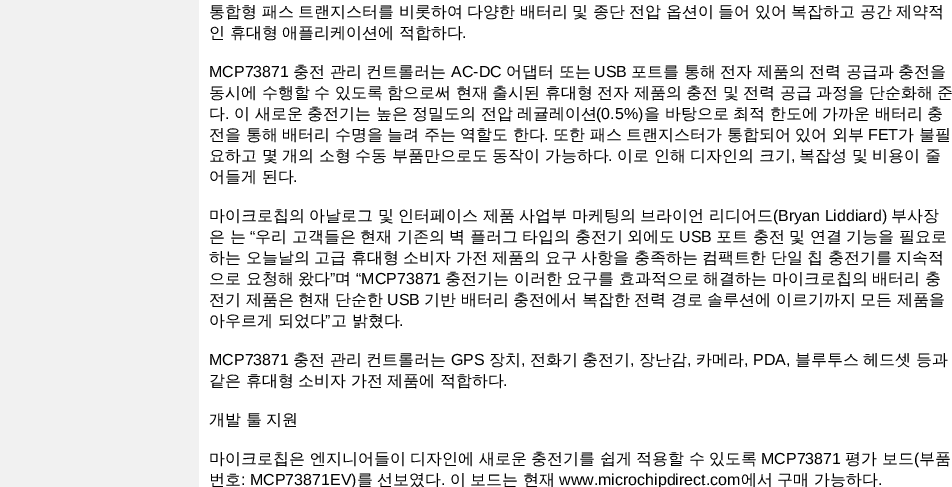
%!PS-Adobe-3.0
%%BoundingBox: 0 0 952 487
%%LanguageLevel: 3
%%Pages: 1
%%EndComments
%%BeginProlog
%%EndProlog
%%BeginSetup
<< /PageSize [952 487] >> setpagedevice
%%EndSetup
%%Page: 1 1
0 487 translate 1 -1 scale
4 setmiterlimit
0.945 setgray
0 0 952 487 rectfill
1 setgray
199 0 753 487 rectfill
/WenQuanYiZenHei-Medium [16 0 0 -16 0 0] selectfont
0 setgray
209 17 moveto -0.3 0 32 (통합형 패스 트랜지스터를 비롯하여 다양한 배터리 및 종단 전압 옵션이 들어 있어 복잡하고 공간 제약적) widthshow
209 38 moveto -0.3 0 32 (인 휴대형 애플리케이션에 적합하다) widthshow
/LiberationSans-Regular [16 0 0 -16 0 0] selectfont
462 38 moveto (.) show
209 77 moveto (MCP73871) show
/WenQuanYiZenHei-Medium [16 0 0 -16 0 0] selectfont
293 77 moveto -0.25 0 32 (충전 관리 컨트롤러는) widthshow
/LiberationSans-Regular [16 0 0 -16 0 0] selectfont
451 77 moveto (AC-DC) show
/WenQuanYiZenHei-Medium [16 0 0 -16 0 0] selectfont
506 77 moveto -0.25 0 32 (어댑터 또는) widthshow
/LiberationSans-Regular [16 0 0 -16 0 0] selectfont
594 77 moveto (USB) show
/WenQuanYiZenHei-Medium [16 0 0 -16 0 0] selectfont
631 77 moveto -0.25 0 32 (포트를 통해 전자 제품의 전력 공급과 충전을) widthshow
209 98 moveto -0.3 0 32 (동시에 수행할 수 있도록 함으로써 현재 출시된 휴대형 전자 제품의 충전 및 전력 공급 과정을 단순화해 준) widthshow
209 119 moveto (다) show
/LiberationSans-Regular [16 0 0 -16 0 0] selectfont
225 119 moveto (.) show
/WenQuanYiZenHei-Medium [16 0 0 -16 0 0] selectfont
234 119 moveto -0.25 0 32 (이 새로운 충전기는 높은 정밀도의 전압 레귤레이션) widthshow
/LiberationSans-Regular [16 0 0 -16 0 0] selectfont
596 119 moveto (\(0.5%\)) show
/WenQuanYiZenHei-Medium [16 0 0 -16 0 0] selectfont
644 119 moveto -0.25 0 32 (을 바탕으로 최적 한도에 가까운 배터리 충) widthshow
209 140 moveto -0.25 0 32 (전을 통해 배터리 수명을 늘려 주는 역할도 한다) widthshow
/LiberationSans-Regular [16 0 0 -16 0 0] selectfont
544 140 moveto (.) show
/WenQuanYiZenHei-Medium [16 0 0 -16 0 0] selectfont
553 140 moveto -0.25 0 32 (또한 패스 트랜지스터가 통합되어 있어 외부) widthshow
/LiberationSans-Regular [16 0 0 -16 0 0] selectfont
868 140 moveto (FET) show
/WenQuanYiZenHei-Medium [16 0 0 -16 0 0] selectfont
898 140 moveto -0.25 0 32 (가 불필) widthshow
209 161 moveto -0.25 0 32 (요하고 몇 개의 소형 수동 부품만으로도 동작이 가능하다) widthshow
/LiberationSans-Regular [16 0 0 -16 0 0] selectfont
608 161 moveto (.) show
/WenQuanYiZenHei-Medium [16 0 0 -16 0 0] selectfont
617 161 moveto -0.25 0 32 (이로 인해 디자인의 크기) widthshow
/LiberationSans-Regular [16 0 0 -16 0 0] selectfont
791 161 moveto (,) show
/WenQuanYiZenHei-Medium [16 0 0 -16 0 0] selectfont
799 161 moveto -0.25 0 32 (복잡성 및 비용이 줄) widthshow
209 182 moveto -0.3 0 32 (어들게 된다) widthshow
/LiberationSans-Regular [16 0 0 -16 0 0] selectfont
293 182 moveto (.) show
/WenQuanYiZenHei-Medium [16 0 0 -16 0 0] selectfont
209 221 moveto (마이크로칩의) show
309 221 moveto (아날로그) show
378 221 moveto (및) show
398 221 moveto (인터페이스) show
483 221 moveto (제품) show
519 221 moveto (사업부) show
572 221 moveto (마케팅의) show
640 221 moveto (브라이언) show
709 221 moveto (리디어드) show
/LiberationSans-Regular [16 0 0 -16 0 0] selectfont
773 221 moveto (\(Bryan Liddiard\)) show
/WenQuanYiZenHei-Medium [16 0 0 -16 0 0] selectfont
891 221 moveto (부사장) show
209 242 moveto -0.25 0 32 (은 는) widthshow
/LiberationSans-Regular [16 0 0 -16 0 0] selectfont
250 242 moveto (“) show
/WenQuanYiZenHei-Medium [16 0 0 -16 0 0] selectfont
255 242 moveto -0.25 0 32 (우리 고객들은 현재 기존의 벽 플러그 타입의 충전기 외에도) widthshow
/LiberationSans-Regular [16 0 0 -16 0 0] selectfont
679 242 moveto (USB) show
/WenQuanYiZenHei-Medium [16 0 0 -16 0 0] selectfont
716 242 moveto -0.25 0 32 (포트 충전 및 연결 기능을 필요로) widthshow
209 263 moveto -0.3 0 32 (하는 오늘날의 고급 휴대형 소비자 가전 제품의 요구 사항을 충족하는 컴팩트한 단일 칩 충전기를 지속적) widthshow
209 284 moveto -0.25 0 32 (으로 요청해 왔다) widthshow
/LiberationSans-Regular [16 0 0 -16 0 0] selectfont
330 284 moveto (”) show
/WenQuanYiZenHei-Medium [16 0 0 -16 0 0] selectfont
335 284 moveto (며) show
/LiberationSans-Regular [16 0 0 -16 0 0] selectfont
356 284 moveto (“MCP73871) show
/WenQuanYiZenHei-Medium [16 0 0 -16 0 0] selectfont
445 284 moveto -0.25 0 32 (충전기는 이러한 요구를 효과적으로 해결하는 마이크로칩의 배터리 충) widthshow
209 305 moveto -0.25 0 32 (전기 제품은 현재 단순한) widthshow
/LiberationSans-Regular [16 0 0 -16 0 0] selectfont
387 305 moveto (USB) show
/WenQuanYiZenHei-Medium [16 0 0 -16 0 0] selectfont
424 305 moveto -0.25 0 32 (기반 배터리 충전에서 복잡한 전력 경로 솔루션에 이르기까지 모든 제품을) widthshow
209 326 moveto -0.3 0 32 (아우르게 되었다) widthshow
/LiberationSans-Regular [16 0 0 -16 0 0] selectfont
325 326 moveto (”) show
/WenQuanYiZenHei-Medium [16 0 0 -16 0 0] selectfont
331 326 moveto -0.3 0 32 (고 밝혔다) widthshow
/LiberationSans-Regular [16 0 0 -16 0 0] selectfont
399 326 moveto (.) show
209 365 moveto (MCP73871) show
/WenQuanYiZenHei-Medium [16 0 0 -16 0 0] selectfont
293 365 moveto (충전) show
330 365 moveto (관리) show
366 365 moveto (컨트롤러는) show
/LiberationSans-Regular [16 0 0 -16 0 0] selectfont
451 365 moveto (GPS) show
/WenQuanYiZenHei-Medium [16 0 0 -16 0 0] selectfont
489 365 moveto (장치) show
/LiberationSans-Regular [16 0 0 -16 0 0] selectfont
521 365 moveto (,) show
/WenQuanYiZenHei-Medium [16 0 0 -16 0 0] selectfont
530 365 moveto (전화기) show
582 365 moveto (충전기) show
/LiberationSans-Regular [16 0 0 -16 0 0] selectfont
630 365 moveto (,) show
/WenQuanYiZenHei-Medium [16 0 0 -16 0 0] selectfont
639 365 moveto (장난감) show
/LiberationSans-Regular [16 0 0 -16 0 0] selectfont
687 365 moveto (,) show
/WenQuanYiZenHei-Medium [16 0 0 -16 0 0] selectfont
696 365 moveto (카메라) show
/LiberationSans-Regular [16 0 0 -16 0 0] selectfont
744 365 moveto (, PDA,) show
/WenQuanYiZenHei-Medium [16 0 0 -16 0 0] selectfont
795 365 moveto (블루투스) show
863 365 moveto (헤드셋) show
916 365 moveto (등과) show
209 386 moveto -0.3 0 32 (같은 휴대형 소비자 가전 제품에 적합하다) widthshow
/LiberationSans-Regular [16 0 0 -16 0 0] selectfont
503 386 moveto (.) show
/WenQuanYiZenHei-Medium [16 0 0 -16 0 0] selectfont
209 425 moveto -0.3 0 32 (개발 툴 지원) widthshow
209 464 moveto -0.25 0 32 (마이크로칩은 엔지니어들이 디자인에 새로운 충전기를 쉽게 적용할 수 있도록) widthshow
/LiberationSans-Regular [16 0 0 -16 0 0] selectfont
761 464 moveto (MCP73871) show
/WenQuanYiZenHei-Medium [16 0 0 -16 0 0] selectfont
845 464 moveto -0.25 0 32 (평가 보드) widthshow
/LiberationSans-Regular [16 0 0 -16 0 0] selectfont
914 464 moveto (\() show
/WenQuanYiZenHei-Medium [16 0 0 -16 0 0] selectfont
919 464 moveto (부품) show
209 485 moveto (번호) show
/LiberationSans-Regular [16 0 0 -16 0 0] selectfont
241 485 moveto (: MCP73871EV\)) show
/WenQuanYiZenHei-Medium [16 0 0 -16 0 0] selectfont
357 485 moveto (를) show
377 485 moveto (선보였다) show
/LiberationSans-Regular [16 0 0 -16 0 0] selectfont
441 485 moveto (.) show
/WenQuanYiZenHei-Medium [16 0 0 -16 0 0] selectfont
450 485 moveto (이) show
470 485 moveto (보드는) show
523 485 moveto (현재) show
/LiberationSans-Regular [16 0 0 -16 0 0] selectfont
559 485 moveto (www.microchipdirect.com) show
/WenQuanYiZenHei-Medium [16 0 0 -16 0 0] selectfont
741 485 moveto (에서) show
777 485 moveto (구매) show
814 485 moveto (가능하다) show
/LiberationSans-Regular [16 0 0 -16 0 0] selectfont
878 485 moveto (.) show
showpage
%%EOF
